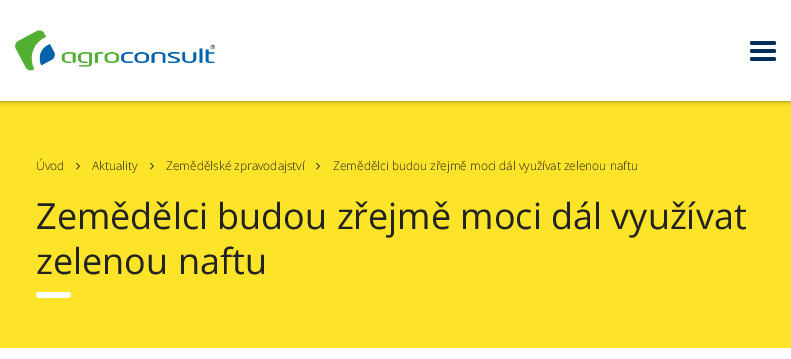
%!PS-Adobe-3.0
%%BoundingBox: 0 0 791 359
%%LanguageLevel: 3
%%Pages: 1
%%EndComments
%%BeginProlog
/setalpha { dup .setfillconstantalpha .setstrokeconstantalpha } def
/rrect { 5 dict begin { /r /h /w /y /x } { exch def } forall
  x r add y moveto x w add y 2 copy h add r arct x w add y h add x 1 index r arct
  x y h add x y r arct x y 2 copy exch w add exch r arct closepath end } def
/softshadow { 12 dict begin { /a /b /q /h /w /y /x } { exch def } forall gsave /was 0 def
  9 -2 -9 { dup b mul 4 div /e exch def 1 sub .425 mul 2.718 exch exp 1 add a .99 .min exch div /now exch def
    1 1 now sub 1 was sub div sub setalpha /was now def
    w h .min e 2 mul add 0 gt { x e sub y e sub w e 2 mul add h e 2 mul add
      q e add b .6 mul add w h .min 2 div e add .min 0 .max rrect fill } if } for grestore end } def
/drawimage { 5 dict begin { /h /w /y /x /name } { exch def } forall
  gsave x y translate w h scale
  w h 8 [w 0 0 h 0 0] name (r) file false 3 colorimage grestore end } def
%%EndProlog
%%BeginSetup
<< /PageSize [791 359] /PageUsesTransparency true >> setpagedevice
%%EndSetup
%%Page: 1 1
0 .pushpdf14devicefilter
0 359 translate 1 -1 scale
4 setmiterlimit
1 setgray
0 0 791 359 rectfill
0.992 0.894 0.157 setrgbcolor
0 101 791 247 rectfill
0 setgray
0 0 791 101 0 2.5 0.52 softshadow
1 setgray
0 0 791 101 rectfill
(images/1.raw) 15 30 200 41 drawimage
0 0.18 0.357 setrgbcolor
750 49 26 4 2 rrect fill
750 41 26 4 2 rrect fill
750 57 26 4 2 rrect fill
(images/2.raw) 76 162 4 8 drawimage
(images/2.raw) 150 162 4 8 drawimage
(images/2.raw) 316 162 4 8 drawimage
1 setgray
36 292 35 6 3 rrect fill
/OpenSans-Light [12 0 0 -12 0 0] selectfont
0.133 setgray
36 170 moveto (Úvod) show
92 170 moveto (Aktuality) show
166 170 moveto (Zemědělské zpravodajství) show
333 170 moveto (Zemědělci budou zřejmě moci dál využívat zelenou naftu) show
/OpenSans-Regular [36 0 0 -36 0 0] selectfont
36 229 moveto (Zemědělci budou zřejmě moci dál využívat) show
36 274 moveto (zelenou naftu) show
.poppdf14devicefilter showpage
%%EOF
